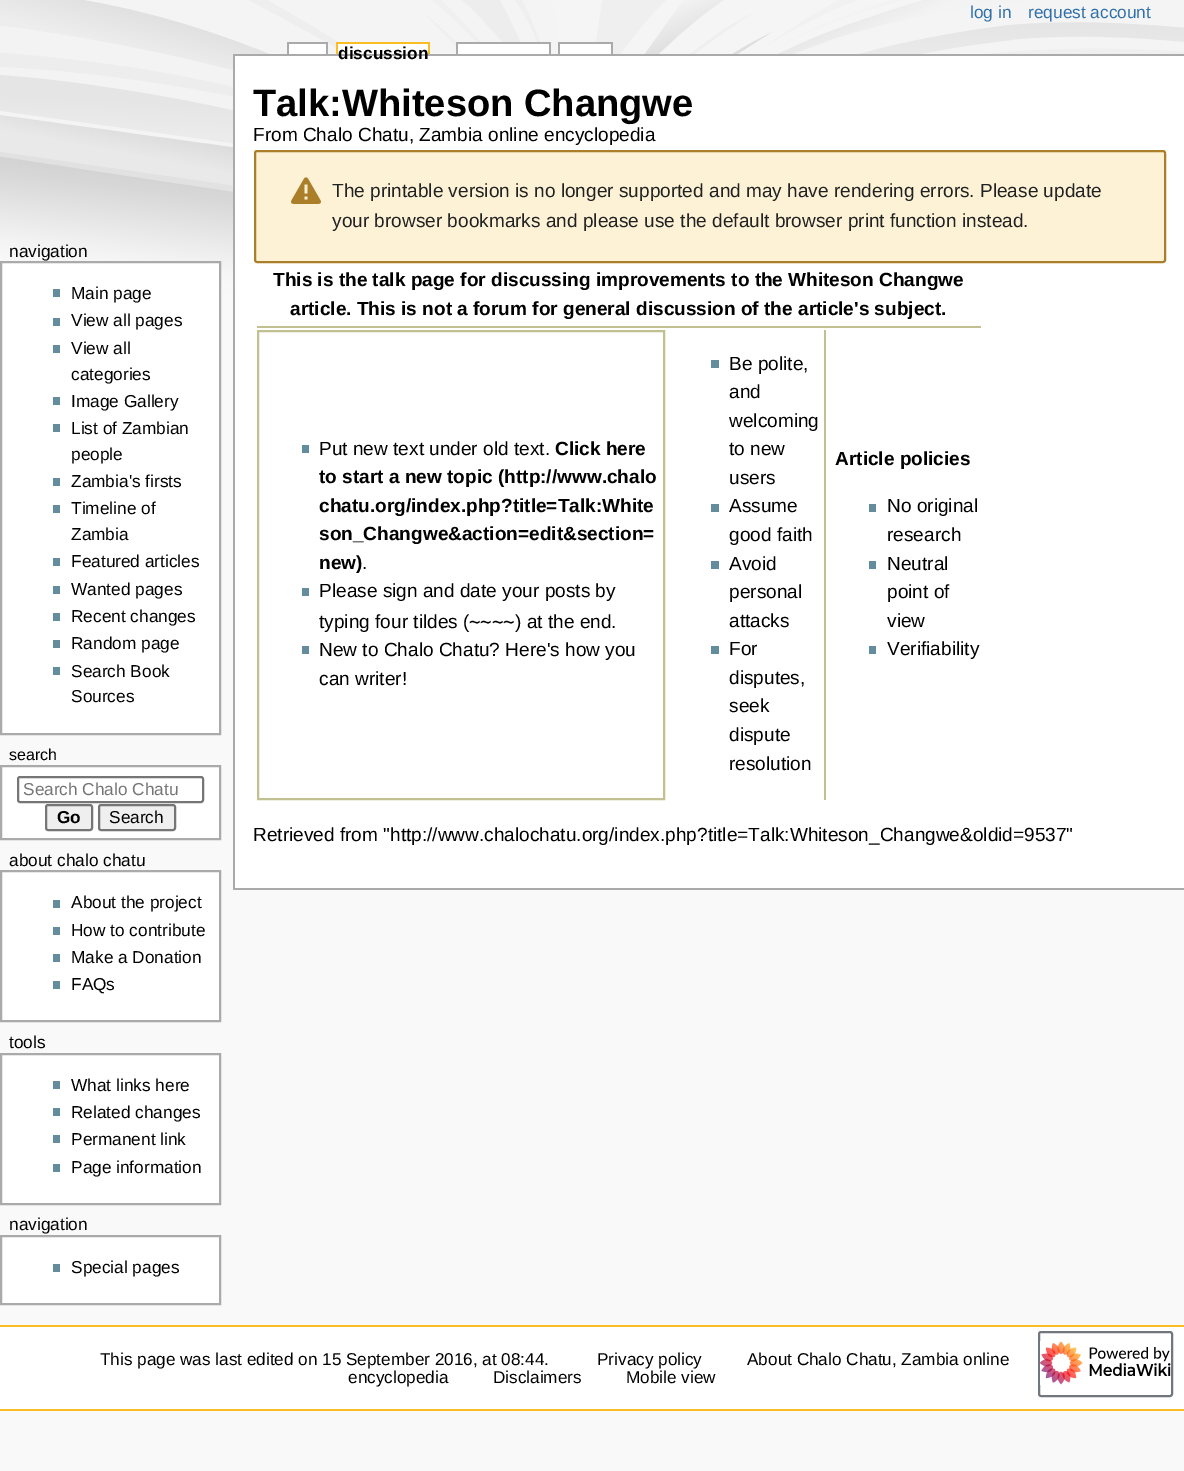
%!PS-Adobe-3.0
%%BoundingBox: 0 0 1184 1471
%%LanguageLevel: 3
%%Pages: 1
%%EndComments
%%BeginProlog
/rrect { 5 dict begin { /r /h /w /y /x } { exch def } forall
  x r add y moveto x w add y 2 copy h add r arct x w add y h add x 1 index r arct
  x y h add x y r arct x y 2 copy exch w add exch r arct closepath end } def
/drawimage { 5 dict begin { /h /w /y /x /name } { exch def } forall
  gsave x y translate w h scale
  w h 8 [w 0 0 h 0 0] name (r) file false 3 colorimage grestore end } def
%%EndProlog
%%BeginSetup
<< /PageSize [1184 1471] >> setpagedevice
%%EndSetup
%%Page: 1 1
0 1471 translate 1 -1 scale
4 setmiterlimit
0.976 setgray
0 0 1184 1471 rectfill
(images/1.raw) 0 0 1184 315 drawimage
0.667 setgray
287 42 40 2 rectfill
287 42 2 12 rectfill
326 42 2 12 rectfill
456 42 95 2 rectfill
456 42 2 12 rectfill
549 42 2 12 rectfill
558 42 54 2 rectfill
1 setgray
289 44 37 10 rectfill
338 44 90 10 rectfill
0.98 0.741 0.137 setrgbcolor
336 42 93 2 rectfill
428 42 2 12 rectfill
336 42 2 12 rectfill
1 setgray
458 44 91 10 rectfill
0.667 setgray
558 42 2 12 rectfill
1 setgray
560 44 51 10 rectfill
0.667 setgray
611 42 2 12 rectfill
1 setgray
newpath 1 262 moveto 220 262 lineto 220 734 lineto 1 734 lineto closepath gsave fill grestore
0.667 setgray
2 setlinewidth
stroke
0.388 0.549 0.612 setrgbcolor
53 289 7 8 rectfill
53 318 7 8 rectfill
53 345 7 8 rectfill
53 397 7 8 rectfill
53 424 7 8 rectfill
53 478 7 8 rectfill
53 505 7 8 rectfill
53 558 7 8 rectfill
53 586 7 8 rectfill
53 613 7 8 rectfill
53 640 7 8 rectfill
53 667 7 8 rectfill
1 setgray
newpath 1 766 moveto 220 766 lineto 220 839 lineto 1 839 lineto closepath gsave fill grestore
0.667 setgray
stroke
0.463 setgray
18 777 185 25 2 rrect stroke
0.937 setgray
46 805 46 25 2 rrect gsave fill grestore
0.463 setgray
stroke
0.937 setgray
99 805 76 25 2 rrect gsave fill grestore
0.463 setgray
stroke
1 setgray
newpath 1 871 moveto 220 871 lineto 220 1021 lineto 1 1021 lineto closepath gsave fill grestore
0.667 setgray
stroke
0.388 0.549 0.612 setrgbcolor
53 900 7 8 rectfill
53 927 7 8 rectfill
53 954 7 8 rectfill
53 981 7 8 rectfill
1 setgray
newpath 1 1054 moveto 220 1054 lineto 220 1204 lineto 1 1204 lineto closepath gsave fill grestore
0.667 setgray
stroke
0.388 0.549 0.612 setrgbcolor
53 1081 7 8 rectfill
53 1108 7 8 rectfill
53 1135 7 8 rectfill
53 1164 7 8 rectfill
1 setgray
newpath 1 1236 moveto 220 1236 lineto 220 1304 lineto 1 1304 lineto closepath gsave fill grestore
0.667 setgray
stroke
0.388 0.549 0.612 setrgbcolor
53 1264 7 8 rectfill
1 setgray
235 56 949 832 rectfill
0.667 setgray
233 54 951 2 rectfill
233 888 951 2 rectfill
233 54 2 836 rectfill
0.992 0.949 0.835 setrgbcolor
255 151 910 111 2 rrect gsave fill grestore
0.671 0.498 0.165 setrgbcolor
stroke
(images/2.raw) 291 177 30 27 drawimage
0.753 0.753 0.565 setrgbcolor
257 326 724 2 rectfill
258 331 406 468 rectstroke
0.388 0.549 0.612 setrgbcolor
302 445 7 8 rectfill
302 588 7 8 rectfill
302 646 7 8 rectfill
711 360 8 8 rectfill
711 504 8 8 rectfill
711 561 8 8 rectfill
711 646 8 8 rectfill
0.753 0.753 0.565 setrgbcolor
824 330 2 470 rectfill
0.388 0.549 0.612 setrgbcolor
869 504 7 8 rectfill
869 561 7 8 rectfill
869 646 7 8 rectfill
1 setgray
0 1327 1184 82 rectfill
0.98 0.741 0.137 setrgbcolor
0 1325 1184 2 rectfill
0 1409 1184 2 rectfill
0.447 0.467 0.49 setrgbcolor
1039 1332 133 64 2 rrect stroke
(images/3.raw) 1040 1341 131 44 drawimage
/LiberationSans-Regular [17.25 0 0 -17.25 0 0] selectfont
0.184 0.435 0.671 setrgbcolor
970 18 moveto (log in) show
1028 18 moveto (request account) show
/LiberationSans-Bold [17.25 0 0 -17.25 0 0] selectfont
0 setgray
338 59 moveto (discussion) show
/LiberationSans-Regular [17.25 0 0 -17.25 0 0] selectfont
9 257 moveto (navigation) show
71 299 moveto (Main page) show
71 326 moveto (View all pages) show
71 354 moveto (View all) show
71 380 moveto (categories) show
71 407 moveto (Image Gallery) show
71 434 moveto (List of Zambian) show
71 460 moveto (people) show
71 487 moveto (Zambia's firsts) show
71 514 moveto (Timeline of) show
71 540 moveto (Zambia) show
71 567 moveto (Featured articles) show
71 595 moveto (Wanted pages) show
71 622 moveto (Recent changes) show
71 649 moveto (Random page) show
71 677 moveto (Search Book) show
71 702 moveto (Sources) show
/LiberationSans-Regular [16 0 0 -16 0 0] selectfont
9 760 moveto (search) show
/LiberationSans-Regular [17.25 0 0 -17.25 0 0] selectfont
0.459 setgray
23 795 moveto (Search Chalo Chatu) show
/LiberationSans-Bold [17.25 0 0 -17.25 0 0] selectfont
0 setgray
57 823 moveto (Go) show
/LiberationSans-Regular [17.25 0 0 -17.25 0 0] selectfont
109 823 moveto (Search) show
9 866 moveto (about chalo chatu) show
71 908 moveto (About the project) show
71 936 moveto (How to contribute) show
71 963 moveto (Make a Donation) show
71 990 moveto (FAQs) show
9 1048 moveto (tools) show
71 1091 moveto (What links here) show
71 1118 moveto (Related changes) show
71 1145 moveto (Permanent link) show
71 1173 moveto (Page information) show
9 1230 moveto (navigation) show
71 1273 moveto (Special pages) show
/LiberationSans-Bold [38.1 0 0 -38.1 0 0] selectfont
253 116 moveto (Talk:Whiteson Changwe) show
/LiberationSans-Regular [19.05 0 0 -19.05 0 0] selectfont
253 141 moveto (From Chalo Chatu, Zambia online encyclopedia) show
0.125 0.129 0.133 setrgbcolor
332 197 moveto (The printable version is no longer supported and may have rendering errors. Please update) show
332 227 moveto (your browser bookmarks and please use the default browser print function instead.) show
/LiberationSans-Bold [19.05 0 0 -19.05 0 0] selectfont
0 setgray
273 286 moveto (This is the talk page for discussing improvements to the) show
788 286 moveto (Whiteson Changwe) show
290 315 moveto (article. This is not a forum for general discussion of the article's subject.) show
/LiberationSans-Regular [19.05 0 0 -19.05 0 0] selectfont
319 455 moveto (Put new text under old text.) show
/LiberationSans-Bold [19.05 0 0 -19.05 0 0] selectfont
555 455 moveto (Click here) show
319 483 moveto (to start a new topic \(http://www.chalo) show
319 512 moveto (chatu.org/index.php?title=Talk:White) show
319 540 moveto (son_Changwe&action=edit&section=) show
319 569 moveto (new\)) show
/LiberationSans-Regular [19.05 0 0 -19.05 0 0] selectfont
362 569 moveto (.) show
319 597 moveto (Please sign and date your posts by) show
319 628 moveto (typing four tildes \() show
/DejaVuSansMono-Regular [19.05 0 0 -19.05 0 0] selectfont
469 628 moveto (~~~~) show
/LiberationSans-Regular [19.05 0 0 -19.05 0 0] selectfont
515 628 moveto (\) at the end.) show
319 656 moveto (New to Chalo Chatu? Here's how you) show
319 685 moveto (can writer!) show
729 370 moveto (Be polite,) show
729 398 moveto (and) show
729 427 moveto (welcoming) show
729 455 moveto (to new) show
729 484 moveto (users) show
729 512 moveto (Assume) show
729 541 moveto (good faith) show
729 570 moveto (Avoid) show
729 598 moveto (personal) show
729 627 moveto (attacks) show
729 655 moveto (For) show
729 684 moveto (disputes,) show
729 712 moveto (seek) show
729 741 moveto (dispute) show
729 770 moveto (resolution) show
/LiberationSans-Bold [19.05 0 0 -19.05 0 0] selectfont
835 465 moveto (Article policies) show
/LiberationSans-Regular [19.05 0 0 -19.05 0 0] selectfont
887 512 moveto (No original) show
887 541 moveto (research) show
887 570 moveto (Neutral) show
887 598 moveto (point of) show
887 627 moveto (view) show
887 655 moveto (Verifiability) show
253 841 moveto (Retrieved from "http://www.chalochatu.org/index.php?title=Talk:Whiteson_Changwe&oldid=9537) show
1066 841 moveto (") show
/LiberationSans-Regular [17.15 0 0 -17.15 0 0] selectfont
100 1365 moveto (This page was last edited on 15 September 2016, at 08:44.) show
597 1365 moveto (Privacy policy) show
747 1365 moveto (About Chalo Chatu, Zambia online) show
348 1383 moveto (encyclopedia) show
493 1383 moveto (Disclaimers) show
626 1383 moveto (Mobile view) show
showpage
%%EOF
